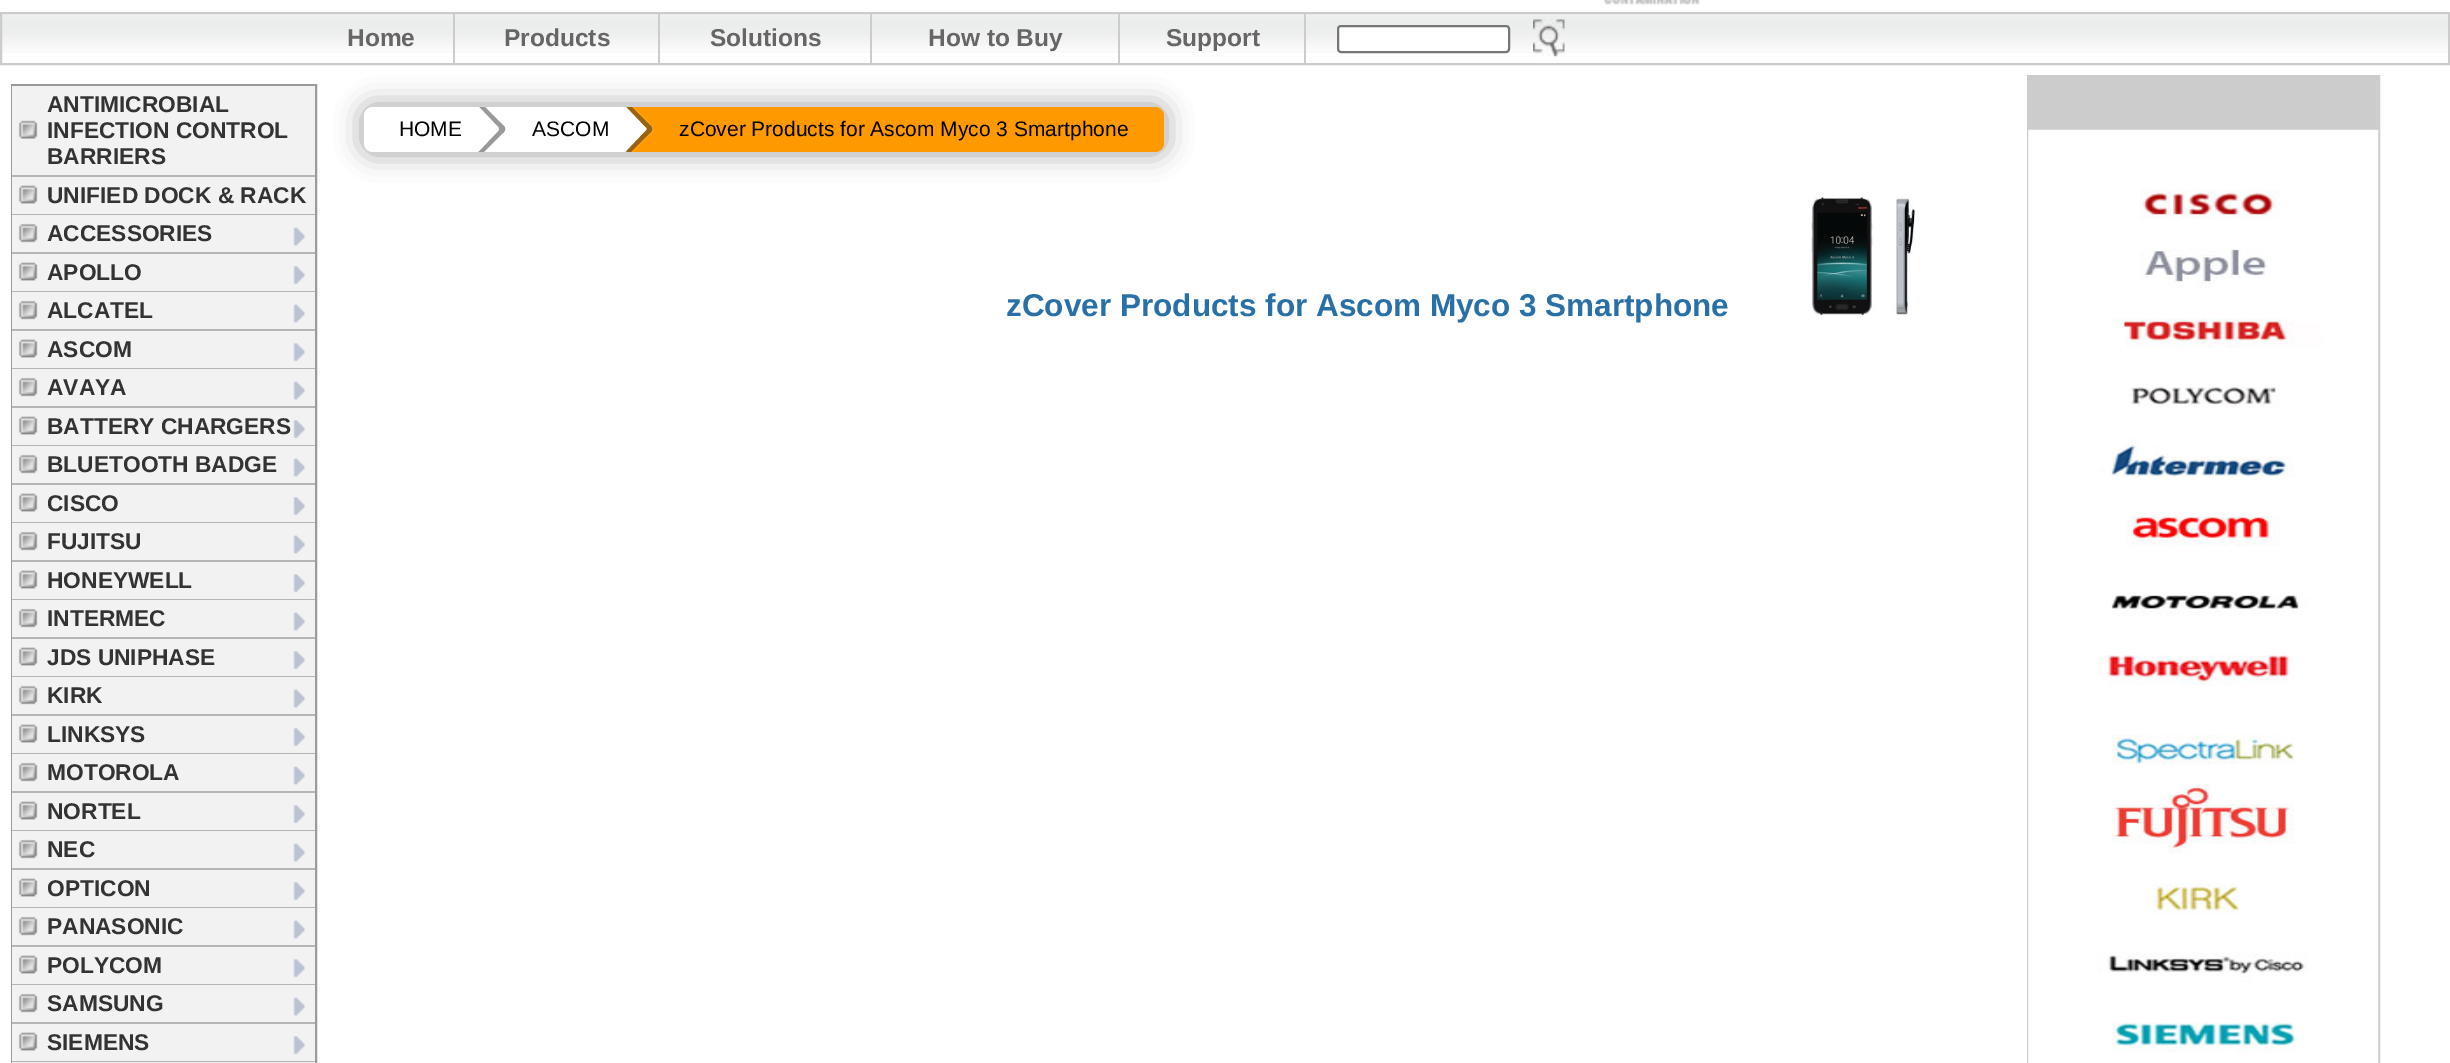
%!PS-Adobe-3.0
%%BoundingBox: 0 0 2450 1063
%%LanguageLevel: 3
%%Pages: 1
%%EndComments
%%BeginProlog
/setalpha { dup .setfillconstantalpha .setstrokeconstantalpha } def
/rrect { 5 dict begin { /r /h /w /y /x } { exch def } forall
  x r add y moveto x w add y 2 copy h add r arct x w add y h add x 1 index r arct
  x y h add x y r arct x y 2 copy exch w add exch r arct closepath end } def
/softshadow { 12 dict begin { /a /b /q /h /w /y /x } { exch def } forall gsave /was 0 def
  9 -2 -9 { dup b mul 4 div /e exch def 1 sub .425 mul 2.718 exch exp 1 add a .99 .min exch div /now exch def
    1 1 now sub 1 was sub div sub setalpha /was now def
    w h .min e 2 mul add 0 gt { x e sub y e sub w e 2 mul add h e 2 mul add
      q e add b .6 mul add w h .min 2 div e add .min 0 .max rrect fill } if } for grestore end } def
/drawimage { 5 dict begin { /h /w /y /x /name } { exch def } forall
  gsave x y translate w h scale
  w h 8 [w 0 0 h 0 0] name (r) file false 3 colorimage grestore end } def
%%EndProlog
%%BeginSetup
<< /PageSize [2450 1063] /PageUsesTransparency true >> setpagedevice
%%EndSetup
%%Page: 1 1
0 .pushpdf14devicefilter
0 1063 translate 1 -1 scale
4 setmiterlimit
1 setgray
0 0 2450 1063 rectfill
(images/1.raw) 222 0 4 1 drawimage
(images/2.raw) 1603 0 97 6 drawimage
(images/3.raw) 2 14 2446 39 drawimage
0.8 setgray
2 setlinewidth
1 13 2448 51 rectstroke
453 14 2 49 rectfill
658 14 2 49 rectfill
870 14 2 49 rectfill
1118 14 2 49 rectfill
1304 14 2 49 rectfill
1 setgray
1338 26 171 26 3 rrect gsave fill grestore
0.463 setgray
stroke
(images/4.raw) 1533 19 32 38 drawimage
0.604 setgray
12 85 304 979 rectstroke
0.949 setgray
12 86 303 89 rectfill
(images/5.raw) 18 120 20 19 drawimage
0.71 setgray
12 175 303 2 rectfill
0.949 setgray
12 177 303 37 rectfill
(images/6.raw) 18 185 20 19 drawimage
0.71 setgray
12 214 303 1 rectfill
0.949 setgray
12 215 303 37 rectfill
(images/7.raw) 18 223 20 20 drawimage
0.71 setgray
12 252 303 2 rectfill
(images/8.raw) 293 227 12 19 drawimage
0.949 setgray
12 254 303 37 rectfill
(images/6.raw) 18 262 20 19 drawimage
0.71 setgray
12 291 303 1 rectfill
(images/9.raw) 293 266 12 19 drawimage
0.949 setgray
12 292 303 37 rectfill
(images/7.raw) 18 300 20 20 drawimage
0.71 setgray
12 329 303 2 rectfill
(images/8.raw) 293 304 12 19 drawimage
0.949 setgray
12 331 303 37 rectfill
(images/6.raw) 18 339 20 19 drawimage
0.71 setgray
12 368 303 1 rectfill
(images/9.raw) 293 343 12 19 drawimage
0.949 setgray
12 369 303 37 rectfill
(images/7.raw) 18 377 20 20 drawimage
0.71 setgray
12 406 303 2 rectfill
(images/8.raw) 293 381 12 19 drawimage
0.949 setgray
12 408 303 37 rectfill
(images/6.raw) 18 416 20 19 drawimage
0.71 setgray
12 445 303 1 rectfill
(images/9.raw) 293 420 12 19 drawimage
0.949 setgray
12 446 303 37 rectfill
(images/7.raw) 18 454 20 20 drawimage
0.71 setgray
12 483 303 2 rectfill
(images/8.raw) 293 458 12 19 drawimage
0.949 setgray
12 485 303 37 rectfill
(images/6.raw) 18 493 20 19 drawimage
0.71 setgray
12 522 303 1 rectfill
(images/9.raw) 293 497 12 19 drawimage
0.949 setgray
12 523 303 37 rectfill
(images/7.raw) 18 531 20 20 drawimage
0.71 setgray
12 560 303 2 rectfill
(images/8.raw) 293 535 12 19 drawimage
0.949 setgray
12 562 303 37 rectfill
(images/6.raw) 18 570 20 19 drawimage
0.71 setgray
12 599 303 1 rectfill
(images/9.raw) 293 574 12 19 drawimage
0.949 setgray
12 600 303 37 rectfill
(images/7.raw) 18 608 20 20 drawimage
0.71 setgray
12 637 303 2 rectfill
(images/8.raw) 293 612 12 19 drawimage
0.949 setgray
12 639 303 37 rectfill
(images/6.raw) 18 647 20 19 drawimage
0.71 setgray
12 676 303 1 rectfill
(images/9.raw) 293 651 12 19 drawimage
0.949 setgray
12 677 303 37 rectfill
(images/7.raw) 18 685 20 20 drawimage
0.71 setgray
12 714 303 2 rectfill
(images/8.raw) 293 689 12 19 drawimage
0.949 setgray
12 716 303 37 rectfill
(images/6.raw) 18 724 20 19 drawimage
0.71 setgray
12 753 303 1 rectfill
(images/9.raw) 293 728 12 19 drawimage
0.949 setgray
12 754 303 37 rectfill
(images/7.raw) 18 762 20 20 drawimage
0.71 setgray
12 791 303 2 rectfill
(images/8.raw) 293 766 12 19 drawimage
0.949 setgray
12 793 303 37 rectfill
(images/6.raw) 18 801 20 19 drawimage
0.71 setgray
12 830 303 1 rectfill
(images/9.raw) 293 805 12 19 drawimage
0.949 setgray
12 831 303 37 rectfill
(images/7.raw) 18 839 20 20 drawimage
0.71 setgray
12 868 303 2 rectfill
(images/8.raw) 293 843 12 19 drawimage
0.949 setgray
12 870 303 37 rectfill
(images/6.raw) 18 878 20 19 drawimage
0.71 setgray
12 907 303 1 rectfill
(images/9.raw) 293 882 12 19 drawimage
0.949 setgray
12 908 303 37 rectfill
(images/7.raw) 18 916 20 20 drawimage
0.71 setgray
12 945 303 2 rectfill
(images/8.raw) 293 920 12 19 drawimage
0.949 setgray
12 947 303 37 rectfill
(images/6.raw) 18 955 20 19 drawimage
0.71 setgray
12 984 303 1 rectfill
(images/9.raw) 293 959 12 19 drawimage
0.949 setgray
12 985 303 37 rectfill
(images/7.raw) 18 993 20 20 drawimage
0.71 setgray
12 1022 303 2 rectfill
(images/8.raw) 293 997 12 19 drawimage
0.949 setgray
12 1024 303 37 rectfill
(images/6.raw) 18 1032 20 19 drawimage
0.71 setgray
12 1061 303 1 rectfill
(images/9.raw) 293 1036 12 19 drawimage
0.949 setgray
12 1062 303 1 rectfill
gsave
newpath 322 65 moveto 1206 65 lineto 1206 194 lineto 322 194 lineto closepath 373 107 moveto 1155 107 lineto 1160 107 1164 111 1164 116 curveto 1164 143 lineto 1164 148 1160 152 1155 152 curveto 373 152 lineto 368 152 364 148 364 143 curveto 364 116 lineto 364 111 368 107 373 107 curveto closepath eoclip newpath
0 setgray
362 105 804 49 11 13 0.35 softshadow
grestore
1 setgray
newpath 373 107 moveto 480 107 lineto 480 152 lineto 373 152 lineto 368 152 364 148 364 143 curveto 364 116 lineto 364 111 368 107 373 107 curveto closepath fill
0.6 setgray
newpath 477 107 moveto 477 108 lineto closepath 478 152 moveto 484 152 lineto 503 133 lineto 506 131 506 127 503 125 curveto 485 107 lineto 478 107 lineto 498 127 lineto 499 128 499 130 498 131 curveto closepath eofill
1 setgray
newpath 479 107 moveto 498 127 lineto 499 128 499 130 498 131 curveto 478 152 lineto 465 139 465 120 477 107 curveto closepath fill
1 0.6 0 setrgbcolor
newpath 627 107 moveto 1155 107 lineto 1160 107 1164 111 1164 116 curveto 1164 143 lineto 1164 148 1160 152 1155 152 curveto 627 152 lineto closepath fill
0.1 setalpha
1 setgray
newpath 627 152 moveto 633 152 lineto 652 133 lineto 654 131 654 127 652 125 curveto 634 107 lineto 626 107 lineto 645 127 lineto 647 128 647 130 645 131 curveto 626 151 lineto closepath fill
0.4 setalpha
0 setgray
newpath 625 152 moveto 631 152 lineto 650 133 lineto 653 131 653 127 650 125 curveto 632 107 lineto 625 107 lineto 645 127 lineto 647 128 647 130 645 131 curveto closepath fill
1 setalpha
1 setgray
newpath 626 107 moveto 645 127 lineto 647 128 647 130 645 131 curveto 625 152 lineto 612 139 612 120 624 107 curveto closepath fill
(images/10.raw) 1811 195 104 121 drawimage
0.8 setgray
2028 76 351 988 rectstroke
2029 77 349 53 rectfill
(images/11.raw) 2028 129 351 934 drawimage
/LiberationSans-Bold [24.5 0 0 -24.5 0 0] selectfont
0.4 setgray
347 46 moveto (Home) show
504 46 moveto (Products) show
710 46 moveto (Solutions) show
928 46 moveto (How to Buy) show
1166 46 moveto (Support) show
/LiberationSans-Bold [22.75 0 0 -22.75 0 0] selectfont
0.2 setgray
47 112 moveto (ANTIMICROBIAL) show
47 138 moveto (INFECTION CONTROL) show
47 164 moveto (BARRIERS) show
47 203 moveto (UNIFIED DOCK & RACK) show
47 241 moveto (ACCESSORIES) show
47 280 moveto (APOLLO) show
47 318 moveto (ALCATEL) show
47 357 moveto (ASCOM) show
47 395 moveto (AVAYA) show
47 434 moveto (BATTERY CHARGERS) show
47 472 moveto (BLUETOOTH BADGE) show
47 511 moveto (CISCO) show
47 549 moveto (FUJITSU) show
47 588 moveto (HONEYWELL) show
47 626 moveto (INTERMEC) show
47 665 moveto (JDS UNIPHASE) show
47 703 moveto (KIRK) show
47 742 moveto (LINKSYS) show
47 780 moveto (MOTOROLA) show
47 819 moveto (NORTEL) show
47 857 moveto (NEC) show
47 896 moveto (OPTICON) show
47 934 moveto (PANASONIC) show
47 973 moveto (POLYCOM) show
47 1011 moveto (SAMSUNG) show
47 1050 moveto (SIEMENS) show
/LiberationSans-Regular [21 0 0 -21 0 0] selectfont
0 setgray
399 136 moveto (HOME) show
532 136 moveto (ASCOM) show
679 136 moveto (zCover Products for Ascom Myco 3 Smartphone) show
/LiberationSans-Bold [31.5 0 0 -31.5 0 0] selectfont
0.161 0.439 0.651 setrgbcolor
1006 316 moveto (zCover Products for Ascom Myco 3 Smartphone) show
.poppdf14devicefilter showpage
%%EOF
